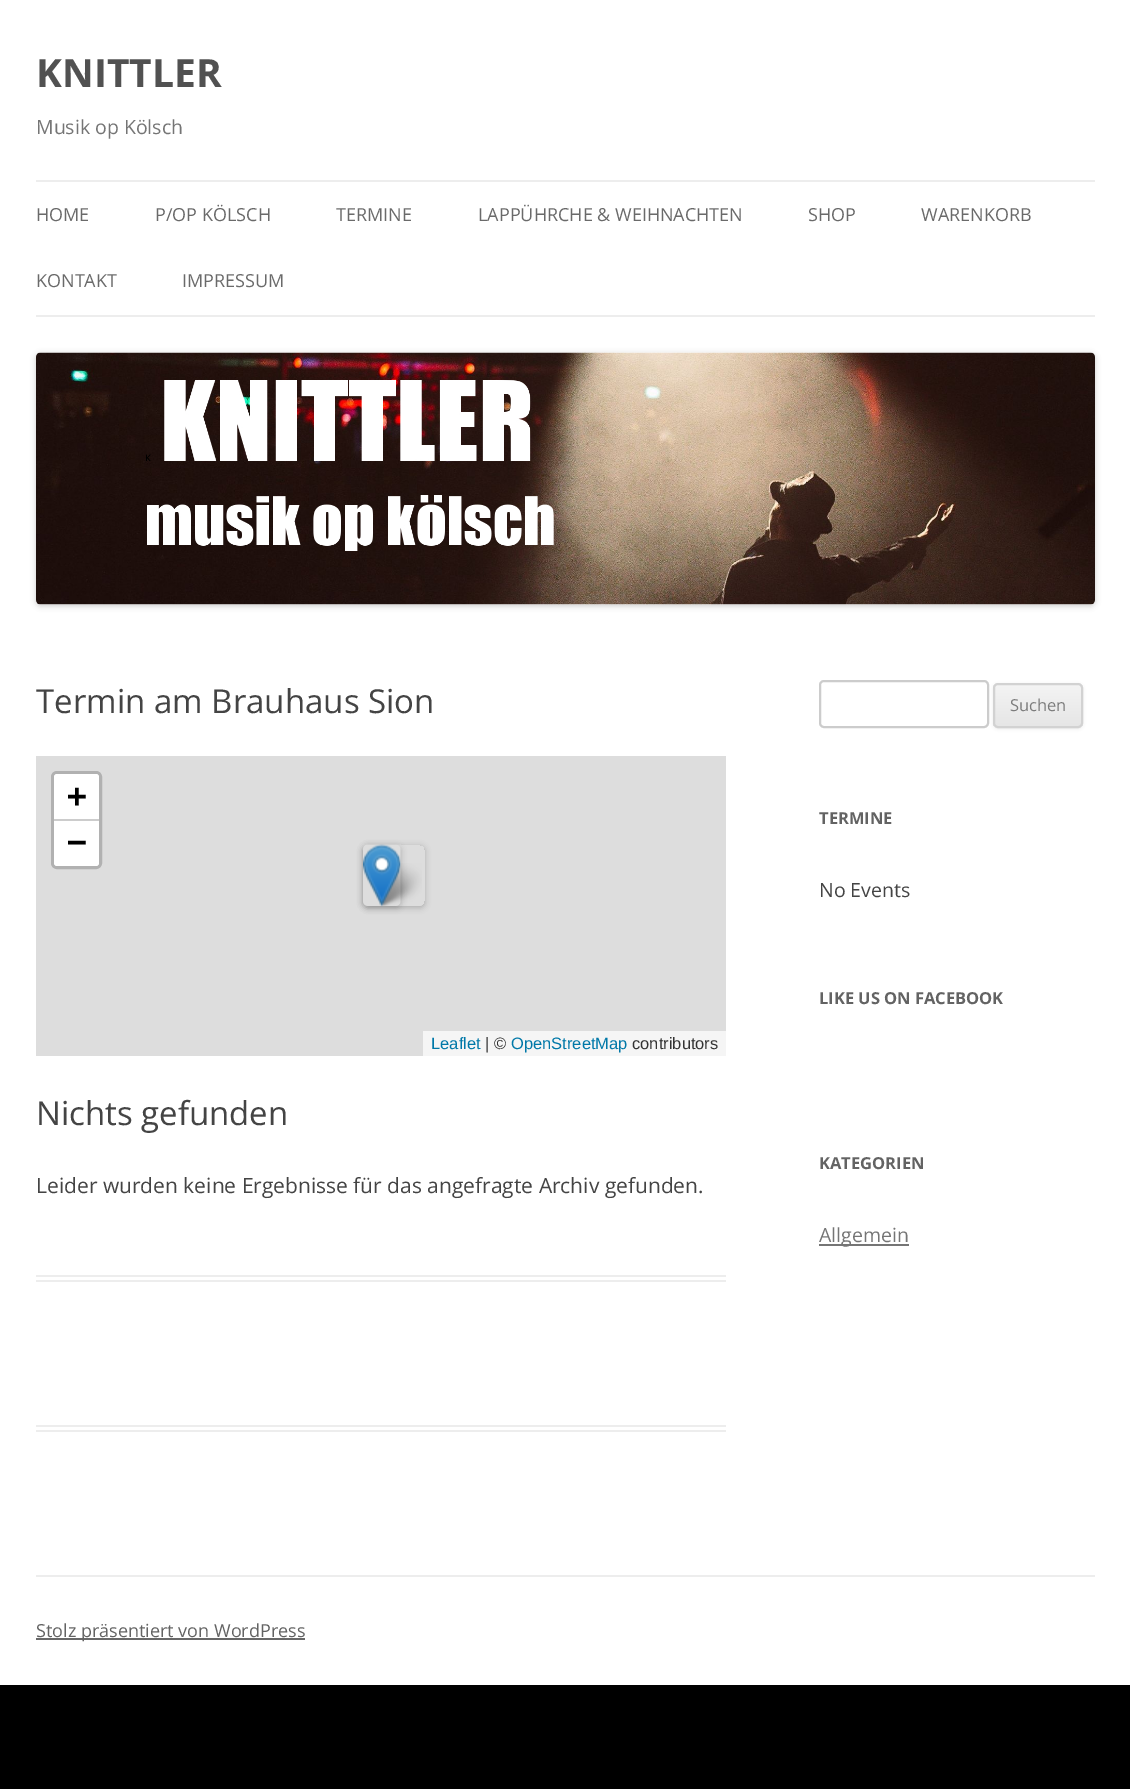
%!PS-Adobe-3.0
%%BoundingBox: 0 0 1130 1789
%%LanguageLevel: 3
%%Pages: 1
%%EndComments
%%BeginProlog
/setalpha { dup .setfillconstantalpha .setstrokeconstantalpha } def
/rrect { 5 dict begin { /r /h /w /y /x } { exch def } forall
  x r add y moveto x w add y 2 copy h add r arct x w add y h add x 1 index r arct
  x y h add x y r arct x y 2 copy exch w add exch r arct closepath end } def
/softshadow { 12 dict begin { /a /b /q /h /w /y /x } { exch def } forall gsave /was 0 def
  9 -2 -9 { dup b mul 4 div /e exch def 1 sub .425 mul 2.718 exch exp 1 add a .99 .min exch div /now exch def
    1 1 now sub 1 was sub div sub setalpha /was now def
    w h .min e 2 mul add 0 gt { x e sub y e sub w e 2 mul add h e 2 mul add
      q e add b .6 mul add w h .min 2 div e add .min 0 .max rrect fill } if } for grestore end } def
/drawimage { 5 dict begin { /h /w /y /x /name } { exch def } forall
  gsave x y translate w h scale
  w h 8 [w 0 0 h 0 0] name (r) file false 3 colorimage grestore end } def
%%EndProlog
%%BeginSetup
<< /PageSize [1130 1789] /PageUsesTransparency true >> setpagedevice
%%EndSetup
%%Page: 1 1
0 .pushpdf14devicefilter
0 1789 translate 1 -1 scale
4 setmiterlimit
0 setgray
0 0 1130 1789 rectfill
1 setgray
0 0 1130 1685 rectfill
0.929 setgray
36 180 1059 2 rectfill
36 315 1059 2 rectfill
0 setgray
36 354 1059 252 5 3 0.2 softshadow
(images/1.raw) 36 352 1059 253 drawimage
0.929 setgray
36 1425 690 2 rectfill
36 1430 690 2 rectfill
0.867 setgray
36 756 690 300 rectfill
0.694 setgray
3 setlinewidth
52.5 772.5 48 95 4.5 rrect stroke
1 setgray
newpath 57 774 moveto 96 774 lineto 97.5 774 99 775.5 99 777 curveto 99 821 lineto 54 821 lineto 54 777 lineto 54 775.5 55.5 774 57 774 curveto closepath fill
0.8 setgray
54 819 45 2 rectfill
1 setgray
newpath 54 821 moveto 99 821 lineto 99 863 lineto 99 864.5 97.5 866 96 866 curveto 57 866 lineto 55.5 866 54 864.5 54 863 curveto closepath fill
0.961 setgray
423 1031 303 25 rectfill
gsave
newpath 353 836 moveto 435 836 lineto 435 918 lineto 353 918 lineto closepath 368 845 moveto 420 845 lineto 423 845 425 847 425 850 curveto 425 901 lineto 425 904 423 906 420 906 curveto 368 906 lineto 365 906 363 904 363 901 curveto 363 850 lineto 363 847 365 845 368 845 curveto closepath eoclip newpath
0 setgray
363 846 62 62 5 3 0.2 softshadow
grestore
(images/2.raw) 376 863 46 43 drawimage
gsave
newpath 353 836 moveto 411 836 lineto 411 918 lineto 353 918 lineto closepath 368 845 moveto 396 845 lineto 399 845 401 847 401 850 curveto 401 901 lineto 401 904 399 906 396 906 curveto 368 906 lineto 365 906 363 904 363 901 curveto 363 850 lineto 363 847 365 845 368 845 curveto closepath eoclip newpath
0 setgray
363 846 38 62 5 3 0.2 softshadow
grestore
(images/3.raw) 363 844 38 63 drawimage
0.929 setgray
36 1275 690 2 rectfill
36 1280 690 2 rectfill
0.8 setgray
2 setlinewidth
820 681 168 46 4 rrect stroke
0.251 setgray
993 684 90 45 5 1.5 0.1 softshadow
gsave
993 683 90 45 5 rrect clip newpath
gsave newpath 993 684 moveto 1083 684 lineto 1083 726 lineto 993 726 lineto closepath clip newpath
<< /ShadingType 2 /ColorSpace /DeviceRGB /Coords [1038 684 1038 726] /Extend [true true] /Function << /FunctionType 2 /Domain [0 1] /C0 [0.957 0.957 0.957] /C1 [0.902 0.902 0.902] /N 1 >> >> shfill grestore
grestore
0.824 setgray
994 684 88 43 4 rrect stroke
0.459 setgray
819 1244 90 2 rectfill
0.929 setgray
36 1575 1059 2 rectfill
0.408 setgray
36 1638 269 2 rectfill
/OpenSans-Bold [39 0 0 -39 0 0] selectfont
0.318 setgray
36 87 moveto (KNITTLER) show
/OpenSans-Regular [19.5 0 0 -19.5 0 0] selectfont
0.459 setgray
36 134 moveto (Musik op Kölsch) show
/OpenSans-Regular [18 0 0 -18 0 0] selectfont
0.416 setgray
36 221 moveto (HOME) show
155 221 moveto (P/OP KÖLSCH) show
336 221 moveto (TERMINE) show
478 221 moveto (LAPPÜHRCHE & WEIHNACHTEN) show
808 221 moveto (SHOP) show
921 221 moveto (WARENKORB) show
36 287 moveto (KONTAKT) show
182 287 moveto (IMPRESSUM) show
/OpenSans-Regular [33 0 0 -33 0 0] selectfont
0.267 setgray
36 713 moveto (Termin am Brauhaus Sion) show
/DejaVuSansMono-Bold [33 0 0 -33 0 0] selectfont
0 setgray
67 807 moveto (+) show
67 853 moveto (−) show
/LiberationSans-Regular [16.5 0 0 -16.5 0 0] selectfont
0 0.471 0.659 setrgbcolor
431 1049 moveto (Leaflet) show
0.2 setgray
485 1049 moveto (| ©) show
0 0.471 0.659 setrgbcolor
511 1049 moveto (OpenStreetMap) show
0.2 setgray
632 1049 moveto (contributors) show
/OpenSans-Regular [33 0 0 -33 0 0] selectfont
0.267 setgray
36 1125 moveto (Nichts gefunden) show
/OpenSans-Regular [21 0 0 -21 0 0] selectfont
36 1193 moveto (Leider wurden keine Ergebnisse für das angefragte Archiv gefunden.) show
/OpenSans-Regular [16.5 0 0 -16.5 0 0] selectfont
0.486 setgray
1010 711 moveto (Suchen) show
/OpenSans-Bold [16.5 0 0 -16.5 0 0] selectfont
0.388 setgray
819 824 moveto (TERMINE) show
/OpenSans-Regular [19.5 0 0 -19.5 0 0] selectfont
0.267 setgray
819 897 moveto (No Events) show
/OpenSans-Bold [16.5 0 0 -16.5 0 0] selectfont
0.388 setgray
819 1004 moveto (LIKE US ON FACEBOOK) show
819 1169 moveto (KATEGORIEN) show
/OpenSans-Regular [19.5 0 0 -19.5 0 0] selectfont
0.459 setgray
819 1242 moveto (Allgemein) show
/OpenSans-Regular [18 0 0 -18 0 0] selectfont
0.388 setgray
36 1637 moveto (Stolz präsentiert von WordPress) show
.poppdf14devicefilter showpage
%%EOF
